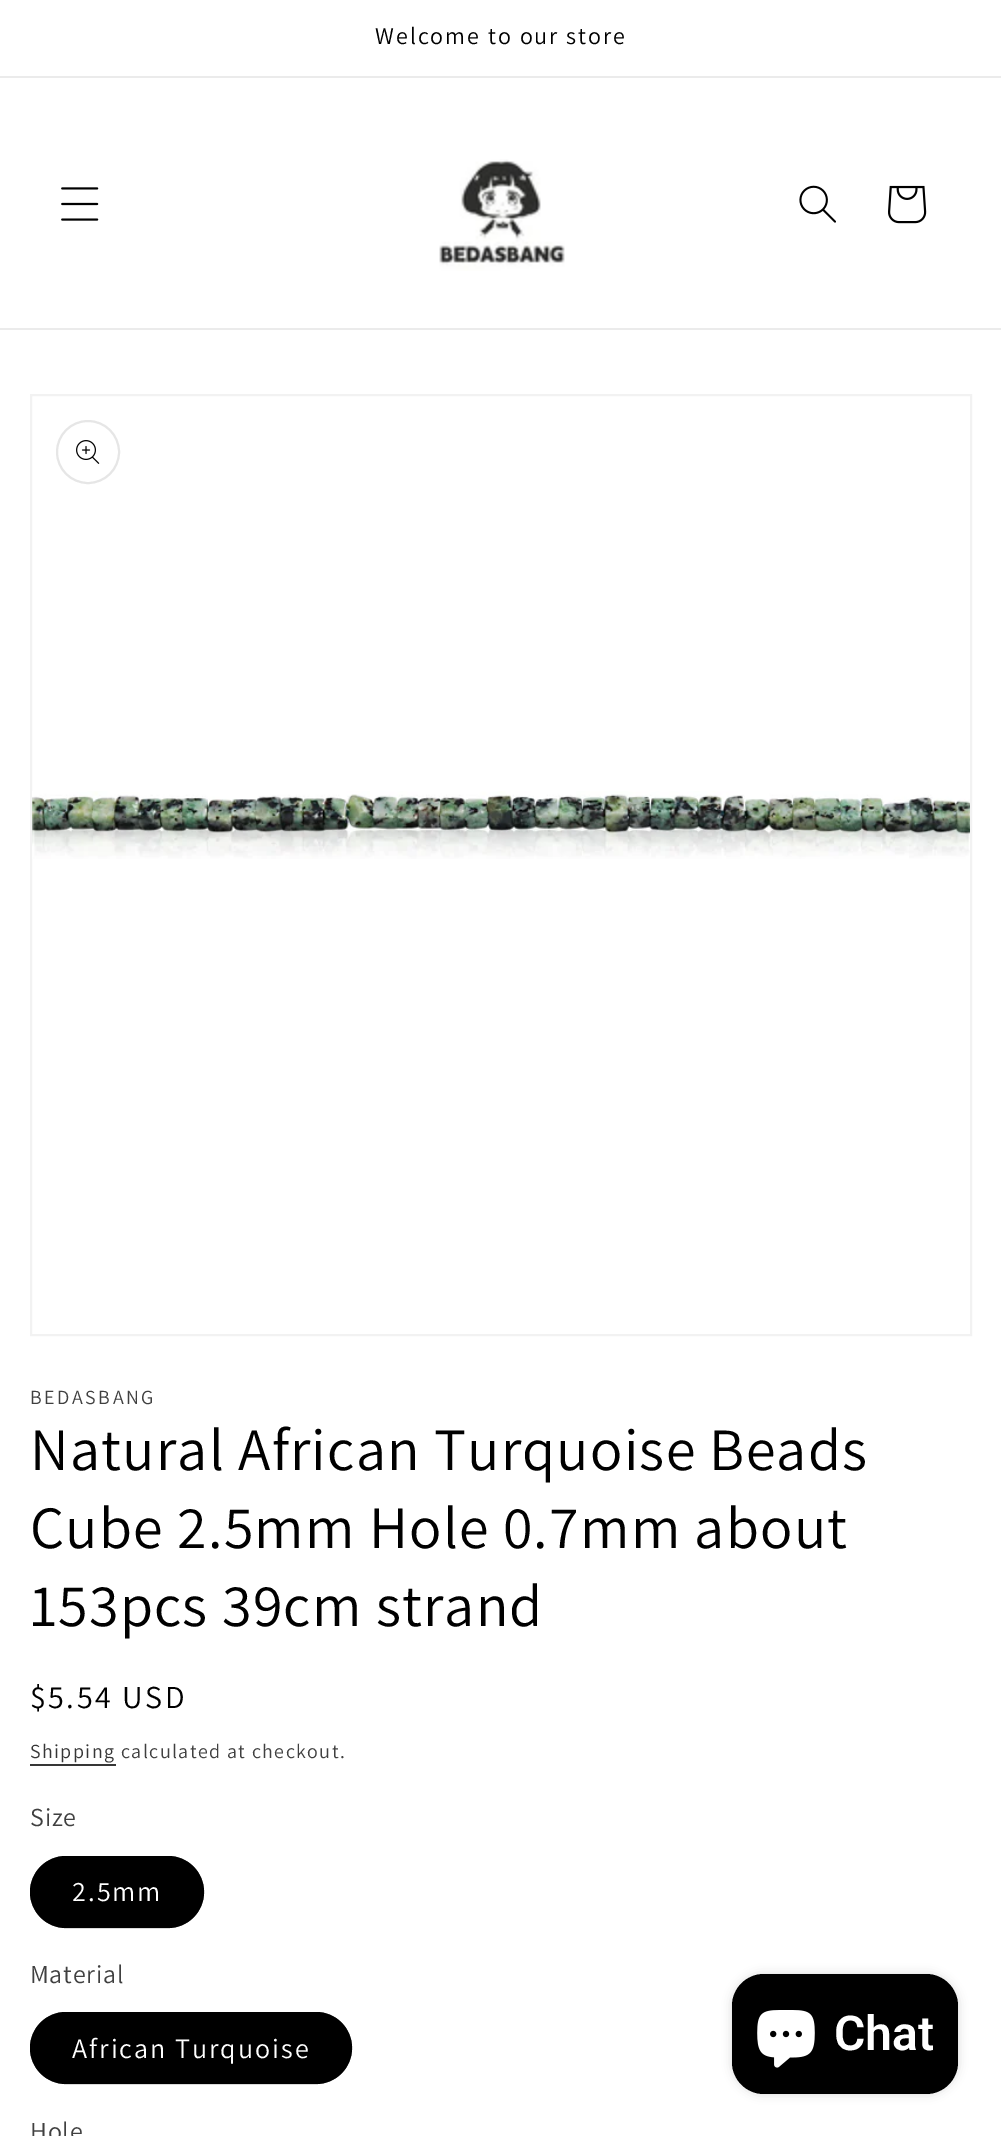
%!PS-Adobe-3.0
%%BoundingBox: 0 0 1001 2136
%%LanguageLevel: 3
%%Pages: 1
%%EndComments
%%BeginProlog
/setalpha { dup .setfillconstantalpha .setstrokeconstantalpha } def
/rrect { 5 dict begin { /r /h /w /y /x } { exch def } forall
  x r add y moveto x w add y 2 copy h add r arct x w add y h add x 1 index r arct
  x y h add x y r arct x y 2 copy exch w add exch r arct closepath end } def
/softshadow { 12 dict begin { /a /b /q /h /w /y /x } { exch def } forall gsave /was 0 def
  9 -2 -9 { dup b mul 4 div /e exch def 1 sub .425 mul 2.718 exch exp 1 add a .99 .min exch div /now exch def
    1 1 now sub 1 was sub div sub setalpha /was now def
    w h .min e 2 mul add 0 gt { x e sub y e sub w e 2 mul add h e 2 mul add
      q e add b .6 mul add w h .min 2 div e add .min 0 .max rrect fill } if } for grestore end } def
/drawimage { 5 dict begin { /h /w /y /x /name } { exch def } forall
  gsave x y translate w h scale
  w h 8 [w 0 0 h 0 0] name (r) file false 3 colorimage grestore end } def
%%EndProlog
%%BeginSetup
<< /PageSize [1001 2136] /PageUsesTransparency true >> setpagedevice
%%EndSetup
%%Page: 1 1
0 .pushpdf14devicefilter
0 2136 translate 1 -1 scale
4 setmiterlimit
1 setgray
0 0 1001 2136 rectfill
0.922 setgray
0 76 1001 2 rectfill
0 328 1001 2 rectfill
(images/1.raw) 61 187 38 34 drawimage
(images/2.raw) 439 159 126 112 drawimage
(images/3.raw) 799 185 37 38 drawimage
(images/4.raw) 888 185 39 39 drawimage
0.949 setgray
2 setlinewidth
31 395 940 940 rectstroke
0.902 setgray
newpath 88 452 31 0 360 arc closepath stroke
(images/5.raw) 76 440 24 24 drawimage
(images/6.raw) 32 791 938 68 drawimage
0.212 setgray
30 1764 86 2 rectfill
0 setgray
30 1856 174 72 36 rrect fill
0.55 setalpha
31 1857 172 70 35 rrect stroke
1 setalpha
30 2012 322 72 36 rrect fill
0.55 setalpha
31 2013 320 70 35 rrect stroke
1 setalpha
732 1974 226 120 32 5 0.15 softshadow
732 1974 226 120 32 rrect fill
(images/7.raw) 757 2010 58 58 drawimage
/Assistant-Regular [24 0 0 -24 0 0] selectfont
375 44 moveto 2 0 (Welcome to our store) ashow
/Assistant-Regular [20 0 0 -20 0 0] selectfont
0.251 setgray
30 1404 moveto 2.5 0 (BEDASBANG) ashow
/Assistant-Regular [60 0 0 -60 0 0] selectfont
0 setgray
30 1470 moveto 1.2 0 (Natural African Turquoise Beads) ashow
30 1548 moveto 1.2 0 (Cube 2.5mm Hole 0.7mm about) ashow
30 1626 moveto 1.2 0 (153pcs 39cm strand) ashow
/Assistant-Regular [32 0 0 -32 0 0] selectfont
30 1708 moveto 2.5 0 ($5.54 USD) ashow
/Assistant-Regular [20 0 0 -20 0 0] selectfont
0.212 setgray
30 1758 moveto 1.4 0 (Shipping) ashow
0.251 setgray
121 1758 moveto 1.4 0 (calculated at checkout.) ashow
/Assistant-Regular [26 0 0 -26 0 0] selectfont
30 1826 moveto 0.75 0 (Size) ashow
/Assistant-Regular [28 0 0 -28 0 0] selectfont
1 setgray
72 1901 moveto 2 0 (2.5mm) ashow
/Assistant-Regular [26 0 0 -26 0 0] selectfont
0.251 setgray
30 1983 moveto 0.75 0 (Material) ashow
/Assistant-Regular [28 0 0 -28 0 0] selectfont
1 setgray
72 2058 moveto 2 0 (African Turquoise) ashow
/Assistant-Regular [26 0 0 -26 0 0] selectfont
0.251 setgray
30 2140 moveto 0.75 0 (Hole) ashow
/Roboto-SemiBold [48 0 0 -48 0 0] selectfont
1 setgray
834 2050 moveto (Chat) show
.poppdf14devicefilter showpage
%%EOF
